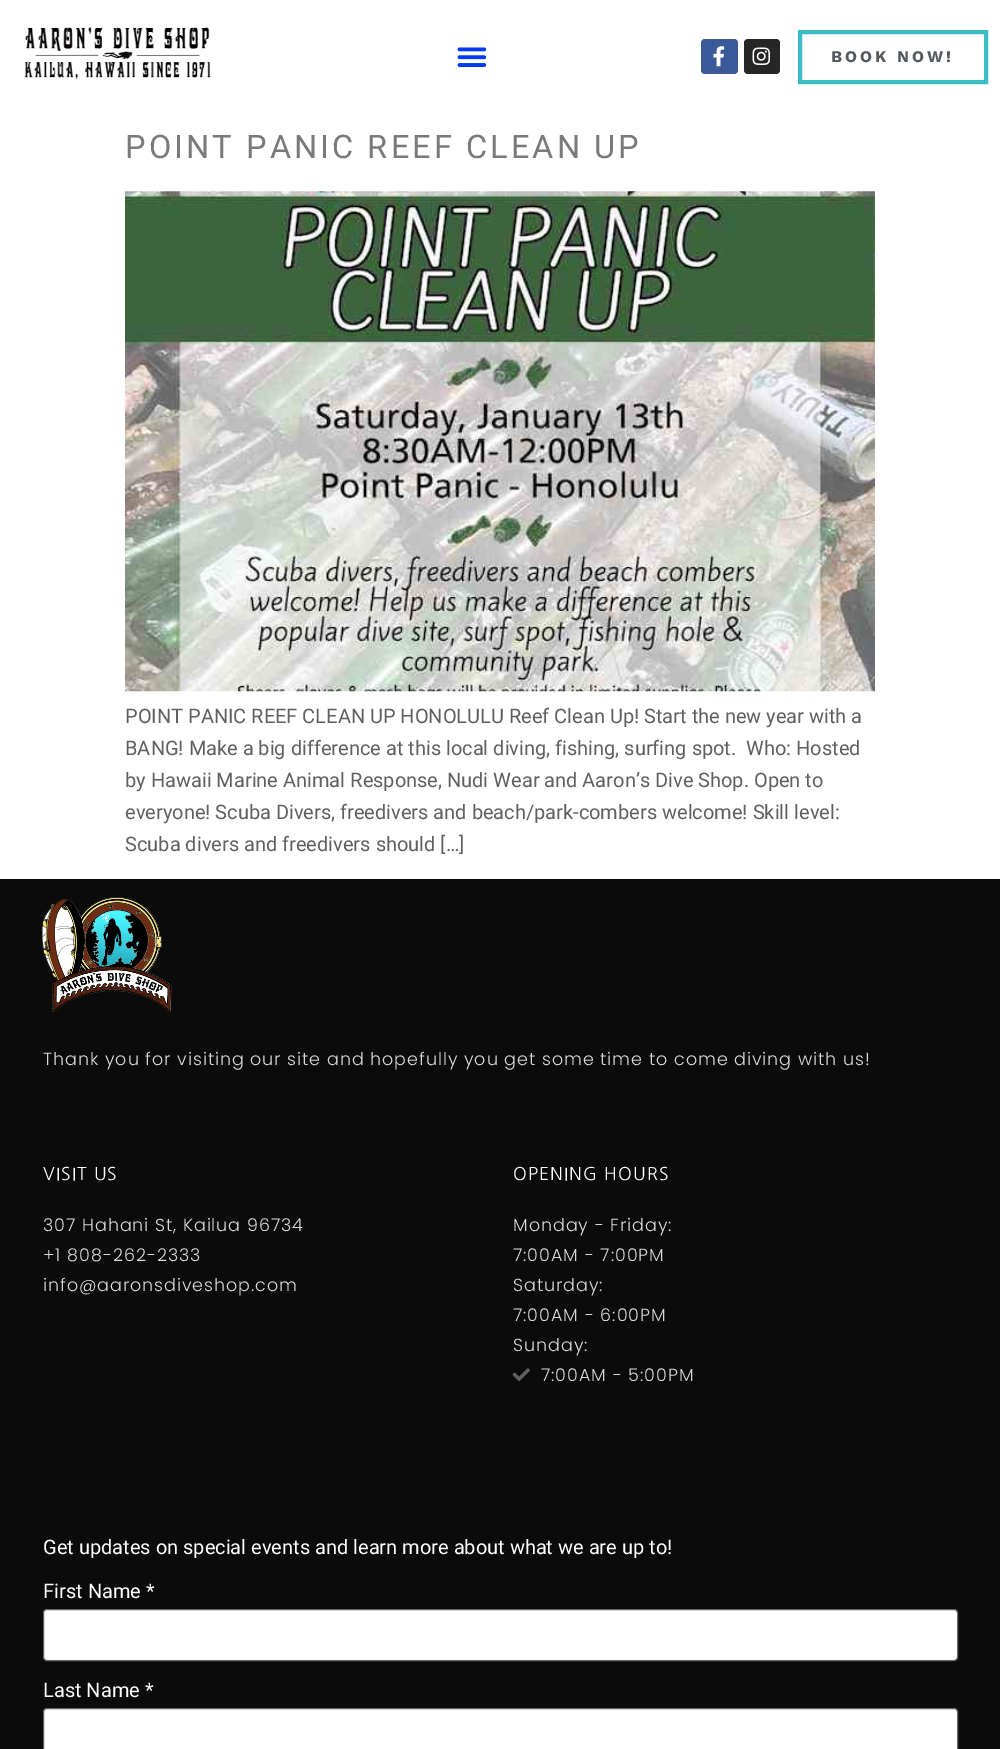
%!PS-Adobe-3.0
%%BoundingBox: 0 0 1000 1749
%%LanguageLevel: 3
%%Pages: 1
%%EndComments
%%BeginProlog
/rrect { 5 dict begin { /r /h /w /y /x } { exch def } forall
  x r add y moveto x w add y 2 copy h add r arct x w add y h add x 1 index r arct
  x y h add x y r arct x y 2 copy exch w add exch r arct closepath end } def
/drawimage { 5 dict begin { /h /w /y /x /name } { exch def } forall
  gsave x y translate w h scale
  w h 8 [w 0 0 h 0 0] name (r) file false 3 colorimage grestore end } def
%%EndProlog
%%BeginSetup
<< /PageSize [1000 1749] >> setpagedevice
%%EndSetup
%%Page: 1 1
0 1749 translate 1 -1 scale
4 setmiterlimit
1 setgray
0 0 1000 1749 rectfill
(images/1.raw) 24 27 187 52 drawimage
(images/2.raw) 457 47 30 20 drawimage
0.231 0.349 0.596 setrgbcolor
701 39 37 35 4 rrect fill
(images/3.raw) 713 46 12 21 drawimage
0.149 setgray
744 39 36 35 4 rrect fill
(images/4.raw) 752 47 19 18 drawimage
0.22 0.741 0.773 setrgbcolor
4 setlinewidth
800 32 186 50 rectstroke
(images/5.raw) 125 191 750 501 drawimage
0.043 setgray
0 879 1000 870 rectfill
(images/6.raw) 42 897 130 115 drawimage
(images/7.raw) 512 1368 18 14 drawimage
1 setgray
43.5 1609.5 914 51 3.5 rrect gsave fill grestore
0.4 setgray
1 setlinewidth
stroke
1 setgray
43.5 1708.5 914 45 3.5 rrect gsave fill grestore
0.4 setgray
stroke
/WorkSans-Bold [16.25 0 0 -16.25 0 0] selectfont
0.329 0.349 0.373 setrgbcolor
831 62 moveto 3 0 (BOOK NOW!) ashow
/Roboto-Regular [32.5 0 0 -32.5 0 0] selectfont
0.478 setgray
125 158 moveto 3.1 0 (POINT PANIC REEF CLEAN UP) ashow
/Roboto-Regular [20 0 0 -20 0 0] selectfont
0.384 0.373 0.373 setrgbcolor
125 723 moveto (POINT PANIC REEF CLEAN UP HONOLULU Reef Clean Up! Start the new year with a) show
125 755 moveto (BANG! Make a big difference at this local diving, fishing, surfing spot.  Who: Hosted) show
125 787 moveto (by Hawaii Marine Animal Response, Nudi Wear and Aaron’s Dive Shop. Open to) show
125 819 moveto (everyone! Scuba Divers, freedivers and beach/park-combers welcome! Skill level:) show
125 851 moveto (Scuba divers and freedivers should […]) show
/Poppins-Light [17.5 0 0 -17.5 0 0] selectfont
0.855 setgray
43 1065 moveto 0.95 0 (Thank you for visiting our site and hopefully you get some time to come diving with us!) ashow
/NanumGothic-Regular [17.5 0 0 -17.5 0 0] selectfont
1 setgray
43 1180 moveto 1.1 0 (VISIT US) ashow
/Poppins-Light [17.5 0 0 -17.5 0 0] selectfont
0.855 setgray
43 1231 moveto 0.95 0 (307 Hahani St, Kailua 96734) ashow
43 1261 moveto 0.95 0 (+1 808-262-2333) ashow
43 1291 moveto 0.95 0 (info@aaronsdiveshop.com) ashow
/NanumGothic-Regular [17.5 0 0 -17.5 0 0] selectfont
1 setgray
513 1180 moveto 1.1 0 (OPENING HOURS) ashow
/Poppins-Light [17.5 0 0 -17.5 0 0] selectfont
0.855 setgray
513 1231 moveto 0.95 0 (Monday - Friday:) ashow
513 1261 moveto 0.95 0 (7:00AM - 7:00PM) ashow
513 1291 moveto 0.95 0 (Saturday:) ashow
513 1321 moveto 0.95 0 (7:00AM - 6:00PM) ashow
513 1351 moveto 0.95 0 (Sunday:) ashow
541 1381 moveto 0.95 0 (7:00AM - 5:00PM) ashow
/Roboto-Regular [20 0 0 -20 0 0] selectfont
1 setgray
43 1554 moveto (Get updates on special events and learn more about what we are up to!) show
43 1598 moveto (First Name *) show
43 1697 moveto (Last Name *) show
showpage
%%EOF
